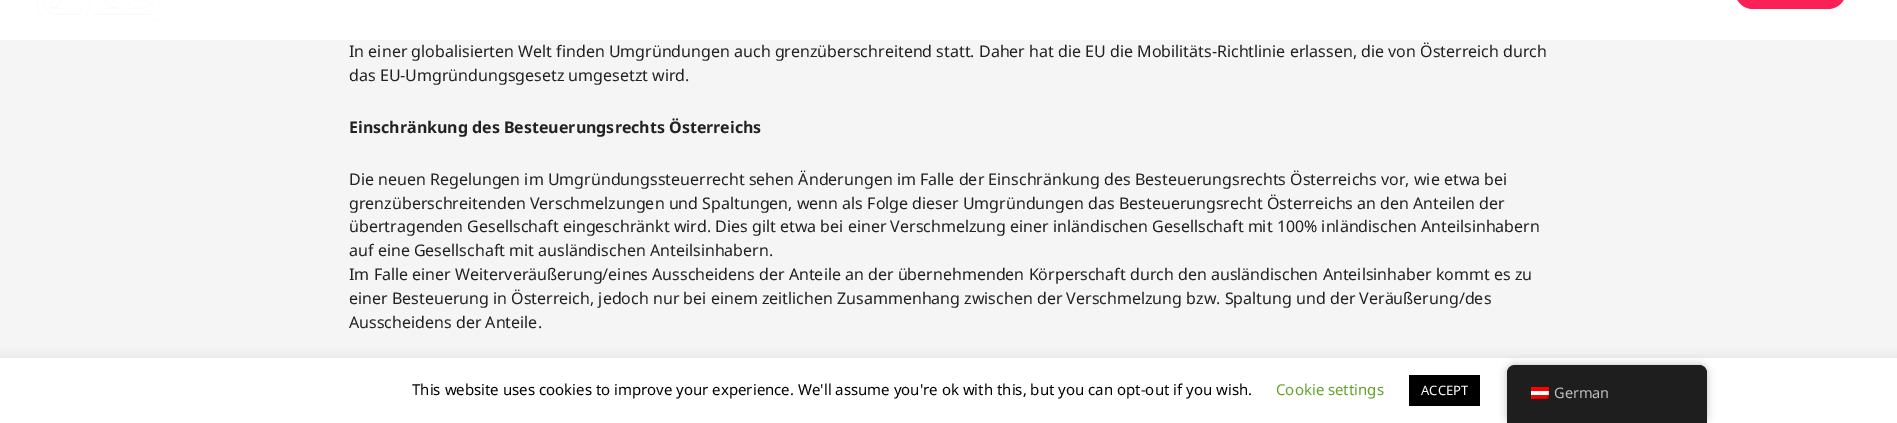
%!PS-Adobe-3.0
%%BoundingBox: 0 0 1897 423
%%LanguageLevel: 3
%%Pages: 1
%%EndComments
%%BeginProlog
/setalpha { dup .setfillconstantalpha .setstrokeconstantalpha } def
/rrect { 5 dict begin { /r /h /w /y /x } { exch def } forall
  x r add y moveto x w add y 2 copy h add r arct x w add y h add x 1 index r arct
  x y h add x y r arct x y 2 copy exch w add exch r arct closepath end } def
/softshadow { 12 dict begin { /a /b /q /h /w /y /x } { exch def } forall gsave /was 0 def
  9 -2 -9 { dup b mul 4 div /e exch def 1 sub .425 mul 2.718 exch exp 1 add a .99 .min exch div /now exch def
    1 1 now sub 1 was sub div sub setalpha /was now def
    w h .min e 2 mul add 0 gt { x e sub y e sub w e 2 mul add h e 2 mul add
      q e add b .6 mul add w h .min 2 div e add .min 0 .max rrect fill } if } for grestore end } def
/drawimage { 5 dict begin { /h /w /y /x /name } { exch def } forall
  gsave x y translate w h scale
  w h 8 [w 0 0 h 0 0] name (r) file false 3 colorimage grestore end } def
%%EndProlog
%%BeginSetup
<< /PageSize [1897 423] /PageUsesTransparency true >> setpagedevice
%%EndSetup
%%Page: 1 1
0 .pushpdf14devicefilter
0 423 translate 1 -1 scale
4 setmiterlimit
0.961 setgray
0 0 1897 423 rectfill
1 setgray
0 0 1897 40 rectfill
(images/1.raw) 37 0 123 22 drawimage
0.984 0.125 0.337 setrgbcolor
1735 -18 111 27 18 rrect fill
0.675 0.671 0.671 setrgbcolor
0 357 1897 65 0 5 0.3 softshadow
1 setgray
0 358 1897 65 rectfill
0 setgray
1409 375 71 31 rectfill
1507 365 200 58 8 4 0.25 softshadow
0.118 setgray
newpath 1515 365 moveto 1699 365 lineto 1703.5 365 1707 368.5 1707 373 curveto 1707 423 lineto 1507 423 lineto 1507 373 lineto 1507 368.5 1510.5 365 1515 365 curveto closepath fill
(images/2.raw) 1531 387 18 12 drawimage
/NotoSans-Regular [16 0 0 -16 0 0] selectfont
0.133 setgray
349 57 moveto (In einer globalisierten Welt finden Umgründungen auch grenzüberschreitend statt. Daher hat die EU die Mobilitäts-Richtlinie erlassen, die von Österreich durch) show
349 81 moveto (das EU-Umgründungsgesetz umgesetzt wird.) show
/NotoSans-Bold [16 0 0 -16 0 0] selectfont
349 133 moveto (Einschränkung des Besteuerungsrechts Österreichs) show
/NotoSans-Regular [16 0 0 -16 0 0] selectfont
349 185 moveto (Die neuen Regelungen im Umgründungssteuerrecht sehen Änderungen im Falle der Einschränkung des Besteuerungsrechts Österreichs vor, wie etwa bei) show
349 209 moveto (grenzüberschreitenden Verschmelzungen und Spaltungen, wenn als Folge dieser Umgründungen das Besteuerungsrecht Österreichs an den Anteilen der) show
349 232 moveto (übertragenden Gesellschaft eingeschränkt wird. Dies gilt etwa bei einer Verschmelzung einer inländischen Gesellschaft mit 100% inländischen Anteilsinhabern) show
349 256 moveto (auf eine Gesellschaft mit ausländischen Anteilsinhabern.) show
349 280 moveto (Im Falle einer Weiterveräußerung/eines Ausscheidens der Anteile an der übernehmenden Körperschaft durch den ausländischen Anteilsinhaber kommt es zu) show
349 304 moveto (einer Besteuerung in Österreich, jedoch nur bei einem zeitlichen Zusammenhang zwischen der Verschmelzung bzw. Spaltung und der Veräußerung/des) show
349 328 moveto (Ausscheidens der Anteile.) show
/NotoSans-Regular [15 0 0 -15 0 0] selectfont
0 setgray
412 395 moveto (This website uses cookies to improve your experience. We'll assume you're ok with this, but you can opt-out if you wish.) show
0.384 0.639 0.161 setrgbcolor
1276 395 moveto (Cookie settings) show
/NotoSans-Regular [13 0 0 -13 0 0] selectfont
1 setgray
1421 395 moveto (ACCEPT) show
/NotoSans-Regular [14.5 0 0 -14.5 0 0] selectfont
0.741 setgray
1554 398 moveto (German) show
.poppdf14devicefilter showpage
%%EOF
